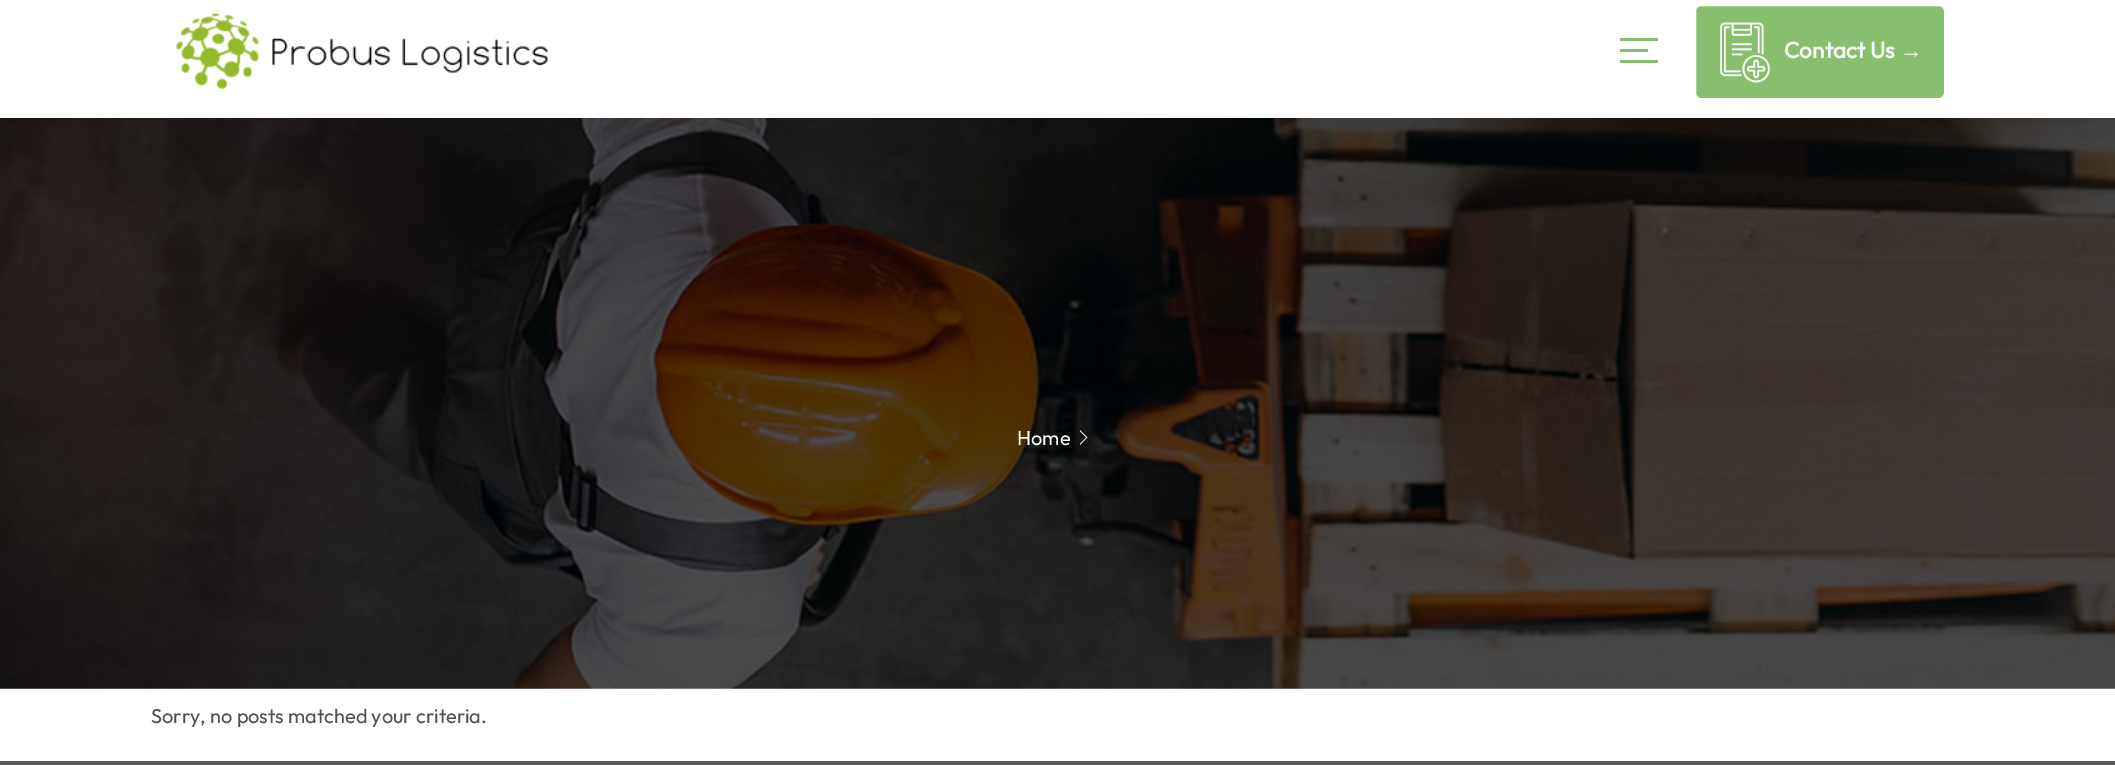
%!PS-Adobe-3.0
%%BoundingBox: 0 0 2115 765
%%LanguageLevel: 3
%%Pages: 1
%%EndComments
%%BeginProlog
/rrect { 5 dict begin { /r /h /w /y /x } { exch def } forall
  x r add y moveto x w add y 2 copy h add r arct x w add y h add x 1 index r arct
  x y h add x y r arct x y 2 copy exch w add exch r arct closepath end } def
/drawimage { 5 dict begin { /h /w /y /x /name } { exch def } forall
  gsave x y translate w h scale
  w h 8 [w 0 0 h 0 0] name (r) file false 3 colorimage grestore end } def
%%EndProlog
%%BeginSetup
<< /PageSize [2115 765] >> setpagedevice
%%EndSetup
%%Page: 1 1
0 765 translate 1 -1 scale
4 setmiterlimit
1 setgray
0 0 2115 765 rectfill
(images/1.raw) 176 13 372 76 drawimage
0.533 0.749 0.431 setrgbcolor
1620 38 38 3 rectfill
1620 49 28 3 rectfill
1620 60 38 3 rectfill
1695.5 5.5 249 93 5.5 rrect gsave fill grestore
1 setgray
stroke
(images/2.raw) 1720 22 50 61 drawimage
(images/3.raw) 0 118 2115 571 drawimage
(images/4.raw) 1080 430 8 15 drawimage
0.357 setgray
0 761 2115 4 rectfill
/Outfit-Bold [22.5 0 0 -22.5 0 0] selectfont
1 setgray
1784 58 moveto (Contact Us) show
/LiberationSerif-Bold [22.5 0 0 -22.5 0 0] selectfont
1900 58 moveto (→) show
/Outfit-Thin [20 0 0 -20 0 0] selectfont
1017 445 moveto (Home) show
0.314 setgray
151 723 moveto (Sorry, no posts matched your criteria.) show
showpage
%%EOF
